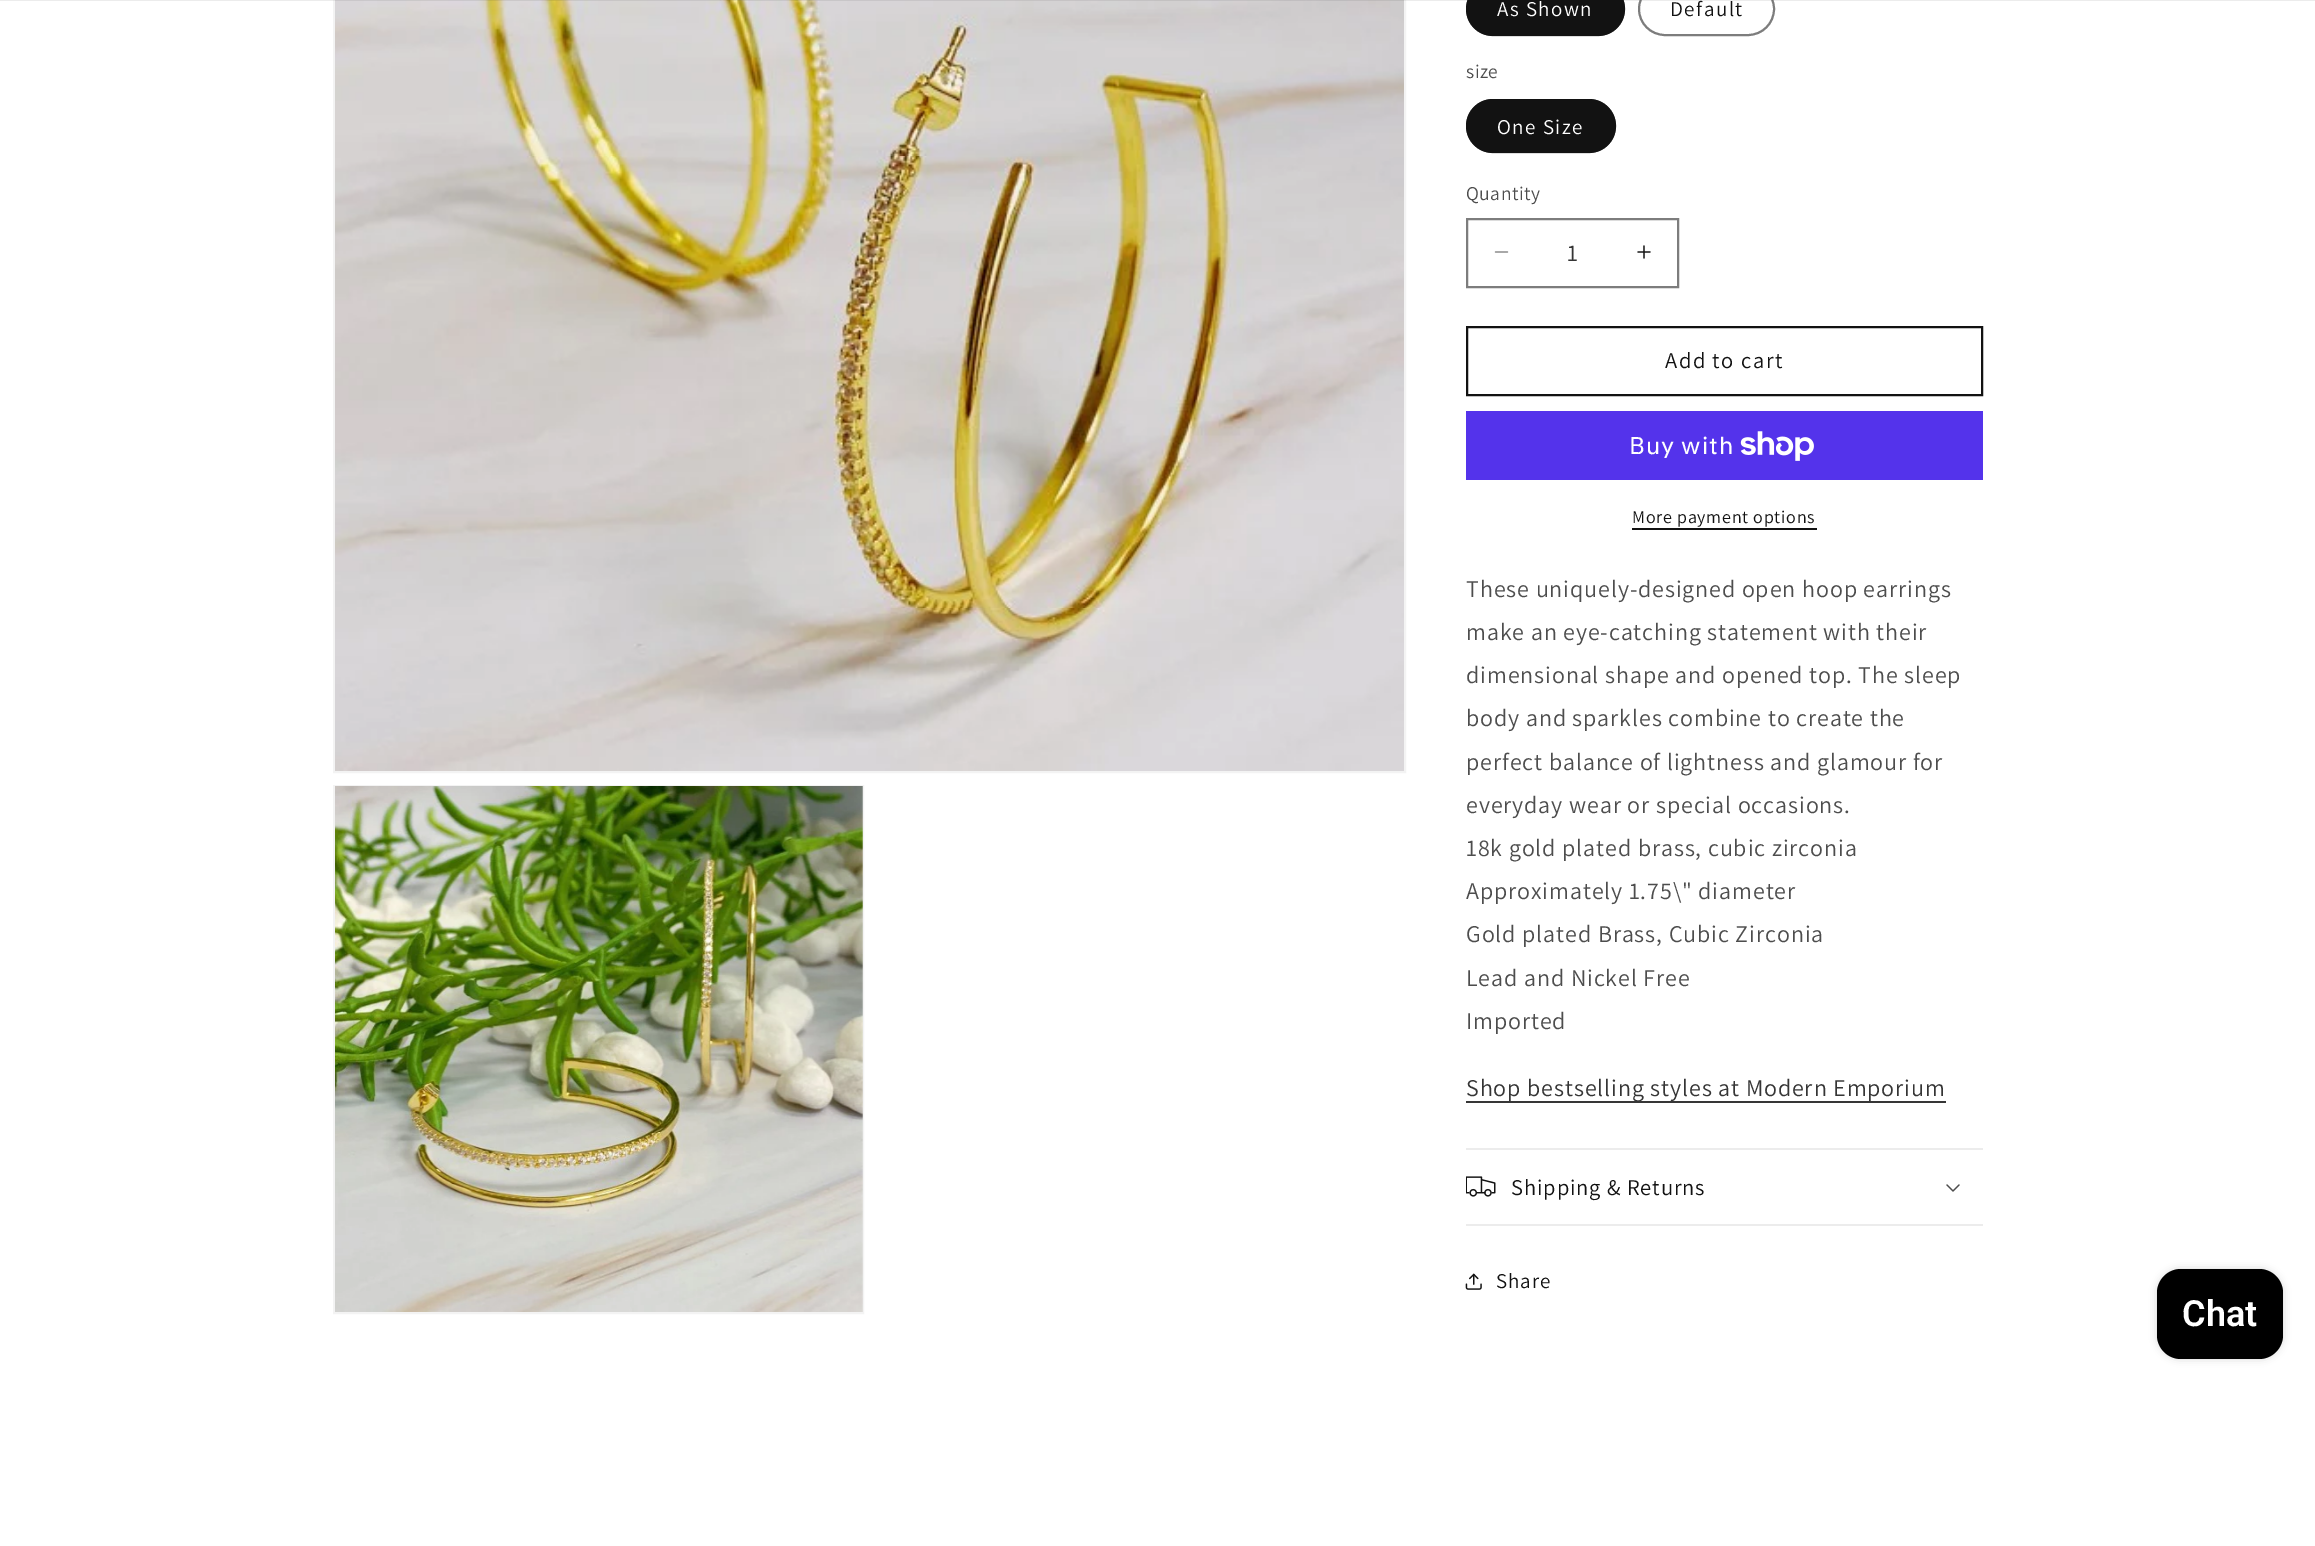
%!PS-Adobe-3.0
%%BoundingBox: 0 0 2315 1546
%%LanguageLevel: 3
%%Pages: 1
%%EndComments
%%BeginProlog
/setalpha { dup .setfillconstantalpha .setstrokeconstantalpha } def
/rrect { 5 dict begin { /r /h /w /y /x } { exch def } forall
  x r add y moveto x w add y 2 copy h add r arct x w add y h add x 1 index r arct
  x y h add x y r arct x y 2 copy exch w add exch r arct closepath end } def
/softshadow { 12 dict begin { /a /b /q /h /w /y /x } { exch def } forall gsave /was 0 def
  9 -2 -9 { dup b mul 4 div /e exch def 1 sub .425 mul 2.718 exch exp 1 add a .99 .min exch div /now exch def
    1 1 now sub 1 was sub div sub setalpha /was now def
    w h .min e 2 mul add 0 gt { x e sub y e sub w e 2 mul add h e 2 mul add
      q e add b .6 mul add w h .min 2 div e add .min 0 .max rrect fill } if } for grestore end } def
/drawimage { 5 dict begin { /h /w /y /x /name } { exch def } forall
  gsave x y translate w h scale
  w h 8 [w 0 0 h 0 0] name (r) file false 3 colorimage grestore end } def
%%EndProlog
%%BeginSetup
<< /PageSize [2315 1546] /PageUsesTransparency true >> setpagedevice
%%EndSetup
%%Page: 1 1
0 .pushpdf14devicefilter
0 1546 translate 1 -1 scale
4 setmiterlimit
1 setgray
0 0 2315 1546 rectfill
0.953 setgray
2 setlinewidth
334 -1 1071 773 rectstroke
(images/1.raw) 335 0 1069 771 drawimage
0.071 setgray
1466 -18 159 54 27 rrect fill
0.55 setalpha
1467 -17 157 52 26 rrect stroke
1 setalpha
0.49 setgray
1639 -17 135 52 26 rrect stroke
0.08 setalpha
0.071 setgray
0 0 2315 1 rectfill
1 setalpha
0.953 setgray
334 786 529 527 rectstroke
(images/2.raw) 335 786 528 526 drawimage
0.071 setgray
1466 99 150 54 27 rrect fill
0.55 setalpha
1467 100 148 52 26 rrect stroke
1 setalpha
(images/3.raw) 1494 251 15 2 drawimage
(images/4.raw) 1637 245 14 14 drawimage
0.49 setgray
1467 219 211 68 rectstroke
0.071 setgray
1467 327 515 68 rectstroke
0.329 0.2 0.922 setrgbcolor
1466 411 517 69 rectfill
(images/5.raw) 1740 431 74 30 drawimage
0.071 setgray
1632 528 185 2 rectfill
0.212 setgray
1466 1101 480 2 rectfill
0.925 setgray
1466 1148 517 2 rectfill
1466 1224 517 2 rectfill
(images/6.raw) 1466 1176 30 21 drawimage
(images/7.raw) 1946 1184 14 8 drawimage
(images/8.raw) 1465 1273 17 17 drawimage
0 setgray
2157 1269 126 90 24 4 0.15 softshadow
2157 1269 126 90 24 rrect fill
/Assistant-Regular [21 0 0 -21 0 0] selectfont
1 setgray
1497 16 moveto 1.5 0 (As Shown) ashow
0.071 setgray
1670 16 moveto 1.5 0 (Default) ashow
/Assistant-Regular [19.5 0 0 -19.5 0 0] selectfont
0.302 setgray
1466 78 moveto 0.5 0 (size) ashow
/Assistant-Regular [21 0 0 -21 0 0] selectfont
1 setgray
1497 134 moveto 1.5 0 (One Size) ashow
/Assistant-Regular [19.5 0 0 -19.5 0 0] selectfont
0.302 setgray
1466 200 moveto 0.5 0 (Quantity) ashow
/Assistant-Regular [24 0 0 -24 0 0] selectfont
0.208 setgray
1567 261 moveto (1) show
/Assistant-Regular [22.5 0 0 -22.5 0 0] selectfont
0.071 setgray
1665 368 moveto 1.5 0 (Add to cart) ashow
/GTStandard-Regular [24 0 0 -24 0 0] selectfont
1 setgray
1629 454 moveto 0.9 0 (Buy with) ashow
/Assistant-Regular [18 0 0 -18 0 0] selectfont
0.071 setgray
1632 523 moveto 0.75 0 (More payment options) ashow
/Assistant-Regular [24 0 0 -24 0 0] selectfont
0.302 setgray
1466 597 moveto 0.9 0 (These uniquely-designed open hoop earrings) ashow
1466 640 moveto 0.9 0 (make an eye-catching statement with their) ashow
1466 683 moveto 0.9 0 (dimensional shape and opened top. The sleep) ashow
1466 726 moveto 0.9 0 (body and sparkles combine to create the) ashow
1466 770 moveto 0.9 0 (perfect balance of lightness and glamour for) ashow
1466 813 moveto 0.9 0 (everyday wear or special occasions.) ashow
1466 856 moveto 0.9 0 (18k gold plated brass, cubic zirconia) ashow
1466 899 moveto 0.9 0 (Approximately 1.75\\" diameter) ashow
1466 942 moveto 0.9 0 (Gold plated Brass, Cubic Zirconia) ashow
1466 986 moveto 0.9 0 (Lead and Nickel Free) ashow
1466 1029 moveto 0.9 0 (Imported) ashow
0.208 setgray
1466 1096 moveto 0.9 0 (Shop bestselling styles at Modern Emporium) ashow
/Assistant-Regular [22.5 0 0 -22.5 0 0] selectfont
0.071 setgray
1511 1195 moveto 0.9 0 (Shipping & Returns) ashow
/Assistant-Regular [21 0 0 -21 0 0] selectfont
1496 1288 moveto 0.9 0 (Share) ashow
/Roboto-SemiBold [36 0 0 -36 0 0] selectfont
1 setgray
2182 1326 moveto (Chat) show
.poppdf14devicefilter showpage
%%EOF
